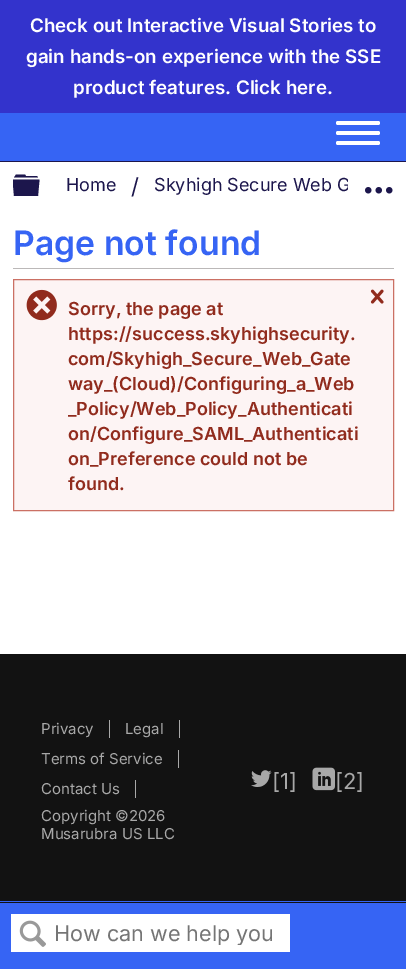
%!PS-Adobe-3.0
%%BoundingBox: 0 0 406 969
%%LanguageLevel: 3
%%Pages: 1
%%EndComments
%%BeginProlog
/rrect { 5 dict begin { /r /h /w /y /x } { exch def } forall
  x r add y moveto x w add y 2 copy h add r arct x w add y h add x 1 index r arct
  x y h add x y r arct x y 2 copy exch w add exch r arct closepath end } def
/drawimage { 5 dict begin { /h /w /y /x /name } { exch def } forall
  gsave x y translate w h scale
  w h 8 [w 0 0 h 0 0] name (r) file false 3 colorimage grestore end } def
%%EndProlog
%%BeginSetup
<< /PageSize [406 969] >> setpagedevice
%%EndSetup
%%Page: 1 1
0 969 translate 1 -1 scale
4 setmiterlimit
1 setgray
0 0 406 969 rectfill
0.2 0.2 0.8 setrgbcolor
0 0 406 113 rectfill
0.212 0.392 0.957 setrgbcolor
0 113 406 48 rectfill
1 setgray
336 121 44 4 2 rrect fill
336 131 44 4 2 rrect fill
336 141 44 4 2 rrect fill
0.11 0.086 0.298 setrgbcolor
0 161 406 1 rectfill
newpath 13 185 moveto 13 179.5 lineto 39.5 179.5 lineto 38 196 lineto 14 196 lineto closepath 37 176 moveto 26 176 lineto 25 174.5 lineto 16 174.5 lineto 14 177.5 lineto 38 177.5 lineto closepath eofill
(images/1.raw) 365 187 28 7 drawimage
0.212 0.392 0.957 setrgbcolor
0 903 406 66 rectfill
0.071 setgray
0 654 406 249 rectfill
0.212 0.392 0.957 setrgbcolor
0 901 406 1 rectfill
1 setgray
11 914 279 38 rectfill
(images/2.raw) 19 920 27 27 drawimage
0.733 0.722 0.722 setrgbcolor
13 268 381 1 rectfill
0.992 0.957 0.957 setrgbcolor
newpath 13.5 279.5 moveto 393.5 279.5 lineto 393.5 510.5 lineto 13.5 510.5 lineto closepath gsave fill grestore
0.796 0.439 0.392 setrgbcolor
stroke
(images/3.raw) 370 289 14 15 drawimage
(images/4.raw) 26 289 31 32 drawimage
0.659 setgray
109 720 1 18 rectfill
179 720 1 18 rectfill
178 750 1 18 rectfill
135 780 1 18 rectfill
(images/5.raw) 251 770 21 17 drawimage
(images/6.raw) 312 767 23 24 drawimage
/Inter-SemiBold [18.75 0 0 -18.75 0 0] selectfont
1 setgray
30 32 moveto (Check out Interactive Visual Stories to) show
26 63 moveto (gain hands-on experience with the SSE) show
73 94 moveto (product features. Click here.) show
/Inter-Regular [18 0 0 -18 0 0] selectfont
0.11 0.086 0.298 setrgbcolor
66 191 moveto (Home) show
/Inter-Regular [22 0 0 -22 0 0] selectfont
131 194 moveto (/) show
gsave
56 168 292 37 rectclip
/Inter-Regular [18 0 0 -18 0 0] selectfont
154 191 moveto (Skyhigh Secure Web G) show
grestore
gsave
44 919 235 26 rectclip
/Inter-Regular [21.6 0 0 -21.6 0 0] selectfont
0.459 setgray
54 941 moveto (How can we help you) show
grestore
/Inter-SemiBold [33.75 0 0 -33.75 0 0] selectfont
0.212 0.392 0.957 setrgbcolor
13 255 moveto (Page not found) show
/Inter-SemiBold [18 0 0 -18 0 0] selectfont
0.569 0.169 0.114 setrgbcolor
68 315 moveto (Sorry, the page at) show
68 340 moveto (https://success.skyhighsecurity.) show
68 365 moveto (com/Skyhigh_Secure_Web_Gate) show
68 390 moveto (way_\(Cloud\)/Configuring_a_Web) show
68 415 moveto (_Policy/Web_Policy_Authenticati) show
68 440 moveto (on/Configure_SAML_Authenticati) show
68 465 moveto (on_Preference could not be) show
68 490 moveto (found.) show
/Inter-Regular [15 0 0 -15 0 0] selectfont
0.659 setgray
41 734 moveto (Privacy) show
125 734 moveto (Legal) show
41 764 moveto (Terms of Service) show
41 794 moveto (Contact Us) show
41 821 moveto (Copyright ©2026) show
41 839 moveto (Musarubra US LLC) show
/Inter-Regular [22 0 0 -22 0 0] selectfont
272 789 moveto ([1]) show
335 789 moveto ([2]) show
showpage
%%EOF
